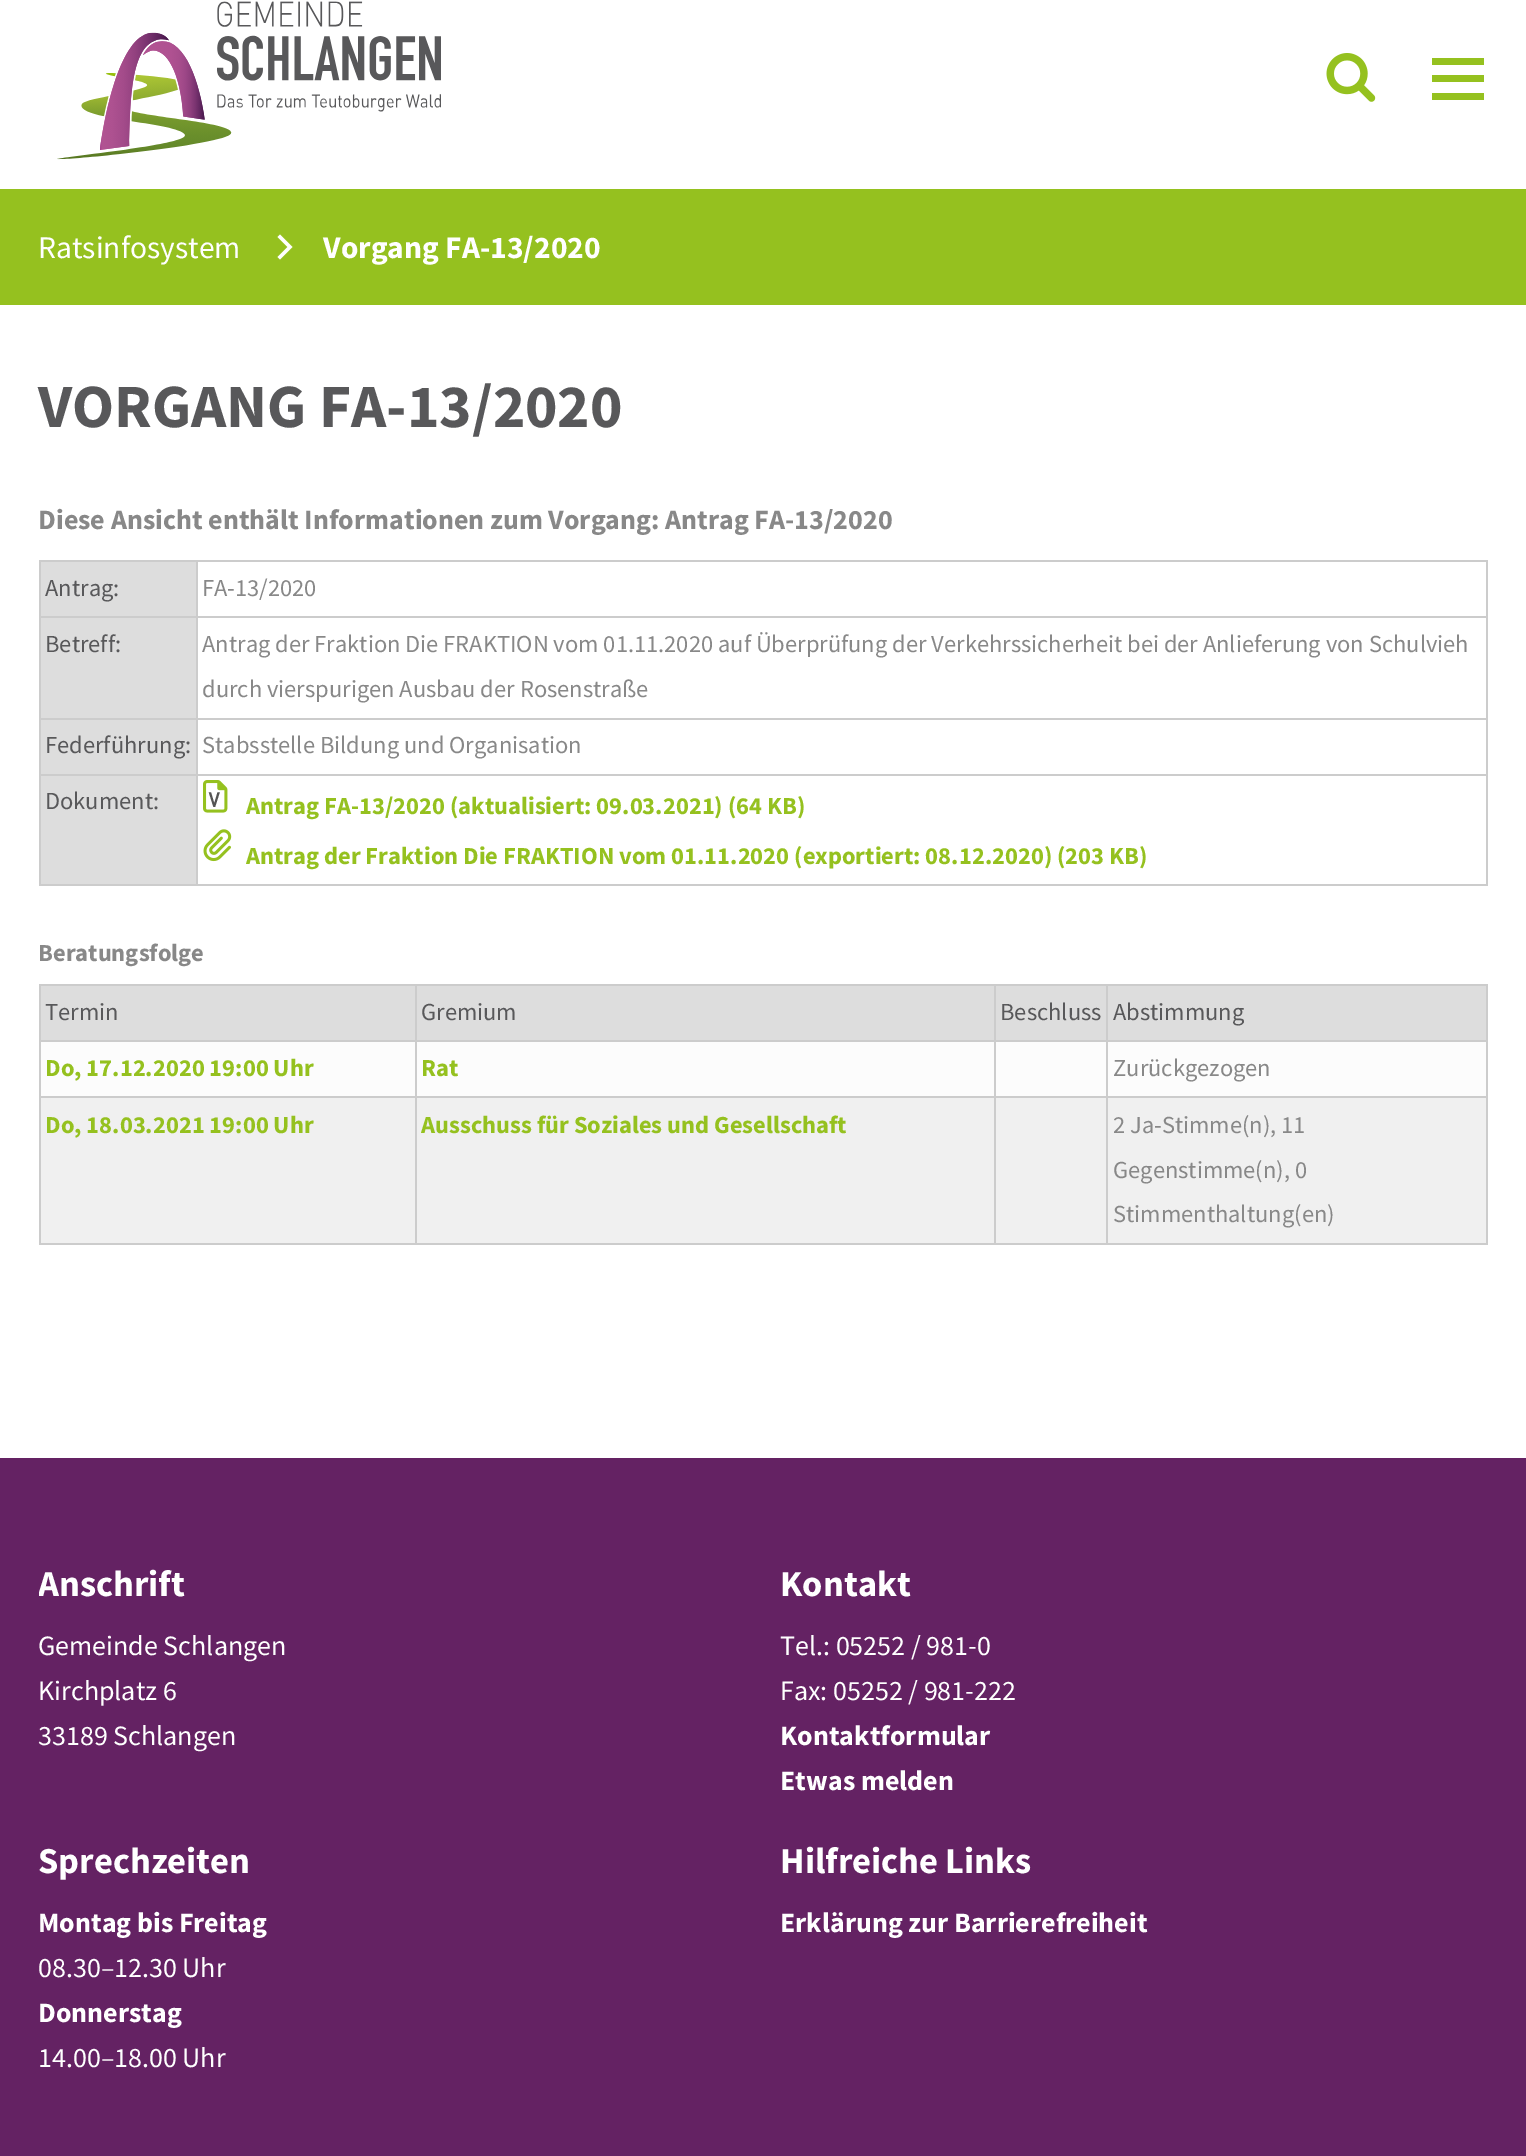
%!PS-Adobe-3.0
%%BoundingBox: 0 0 1526 2156
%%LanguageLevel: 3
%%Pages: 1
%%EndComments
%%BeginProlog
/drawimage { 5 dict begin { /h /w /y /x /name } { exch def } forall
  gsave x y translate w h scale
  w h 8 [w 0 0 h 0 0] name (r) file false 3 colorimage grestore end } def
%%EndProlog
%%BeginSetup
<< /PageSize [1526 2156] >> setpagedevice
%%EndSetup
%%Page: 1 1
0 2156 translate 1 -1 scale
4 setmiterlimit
1 setgray
0 0 1526 2156 rectfill
(images/1.raw) 57 1 384 159 drawimage
(images/2.raw) 1326 53 50 49 drawimage
0.584 0.757 0.122 setrgbcolor
1432 58 52 7 rectfill
1432 75 52 7 rectfill
1432 93 52 7 rectfill
0 189 1526 116 rectfill
1 setgray
newpath 280 259.5 moveto 277.5 257 lineto 287.5 247 lineto 277.5 237 lineto 280 234.5 lineto 292.5 247 lineto closepath fill
0.867 setgray
41 562 155 54 rectfill
0.8 setgray
196 560 1292 2 rectfill
196 616 1292 2 rectfill
196 718 1292 2 rectfill
196 774 1292 2 rectfill
1486 774 2 112 rectfill
196 884 1292 2 rectfill
196 774 2 112 rectfill
39 774 159 2 rectfill
196 718 2 57 rectfill
39 718 159 2 rectfill
196 616 2 103 rectfill
39 616 159 2 rectfill
196 560 2 58 rectfill
39 560 159 2 rectfill
39 884 159 2 rectfill
39 774 2 112 rectfill
39 718 2 57 rectfill
39 616 2 103 rectfill
39 560 2 58 rectfill
1486 718 2 57 rectfill
1486 616 2 103 rectfill
1486 560 2 58 rectfill
0.867 setgray
41 618 155 100 rectfill
41 720 155 54 rectfill
41 776 155 108 rectfill
(images/3.raw) 203 780 25 33 drawimage
(images/4.raw) 203 829 29 33 drawimage
41 986 374 54 rectfill
0.8 setgray
1106 984 382 2 rectfill
1106 1040 382 2 rectfill
1106 1096 382 2 rectfill
1486 1096 2 148 rectfill
1106 1243 382 2 rectfill
1106 1096 2 148 rectfill
994 1096 114 2 rectfill
1106 1040 2 57 rectfill
994 1040 114 2 rectfill
1106 984 2 57 rectfill
994 984 114 2 rectfill
994 1243 114 2 rectfill
994 1096 2 148 rectfill
415 1096 581 2 rectfill
994 1040 2 57 rectfill
415 1040 581 2 rectfill
994 984 2 57 rectfill
415 984 581 2 rectfill
415 1243 581 2 rectfill
415 1096 2 148 rectfill
39 1096 378 2 rectfill
415 1040 2 57 rectfill
39 1040 378 2 rectfill
415 984 2 57 rectfill
39 984 378 2 rectfill
39 1243 378 2 rectfill
39 1096 2 148 rectfill
39 1040 2 57 rectfill
39 984 2 57 rectfill
0.867 setgray
417 986 577 54 rectfill
996 986 110 54 rectfill
1108 986 378 54 rectfill
0.8 setgray
1486 1040 2 57 rectfill
1486 984 2 57 rectfill
0.988 setgray
41 1042 374 54 rectfill
417 1042 577 54 rectfill
996 1042 110 54 rectfill
1108 1042 378 54 rectfill
0.941 setgray
41 1098 374 145 rectfill
417 1098 577 145 rectfill
996 1098 110 145 rectfill
1108 1098 378 145 rectfill
0.392 0.133 0.388 setrgbcolor
0 1458 1526 698 rectfill
/SourceSansPro-Regular [31.5 0 0 -31.5 0 0] selectfont
1 setgray
38 258 moveto (Ratsinfosystem) show
/SourceSansPro-Bold [31.5 0 0 -31.5 0 0] selectfont
323 258 moveto (Vorgang FA-13/2020) show
/SourceSansPro-Bold [61.5 0 0 -61.5 0 0] selectfont
0.345 0.345 0.353 setrgbcolor
38 427 moveto (VORGANG FA-13/2020) show
/SourceSansPro-Bold [28 0 0 -28 0 0] selectfont
0.533 setgray
38 529 moveto (Diese Ansicht enthält Informationen zum Vorgang: Antrag FA-13/2020) show
/SourceSansPro-Regular [24.5 0 0 -24.5 0 0] selectfont
0.345 0.345 0.353 setrgbcolor
45 596 moveto (Antrag:) show
0.533 setgray
202 596 moveto (FA-13/2020) show
0.345 0.345 0.353 setrgbcolor
45 652 moveto (Betreff:) show
0.533 setgray
202 652 moveto (Antrag der Fraktion Die FRAKTION vom 01.11.2020 auf Überprüfung der Verkehrssicherheit bei der Anlieferung von Schulvieh) show
202 697 moveto (durch vierspurigen Ausbau der Rosenstraße) show
0.345 0.345 0.353 setrgbcolor
45 753 moveto (Federführung:) show
0.533 setgray
202 753 moveto (Stabsstelle Bildung und Organisation) show
0.345 0.345 0.353 setrgbcolor
45 809 moveto (Dokument:) show
/RobotoMono-Bold [20 0 0 -20 0 0] selectfont
0.329 setgray
208 807 moveto (V) show
/SourceSansPro-Bold [24.5 0 0 -24.5 0 0] selectfont
0.584 0.757 0.122 setrgbcolor
246 814 moveto (Antrag FA-13/2020 \(aktualisiert: 09.03.2021\) \(64 KB\)) show
246 864 moveto (Antrag der Fraktion Die FRAKTION vom 01.11.2020 \(exportiert: 08.12.2020\) \(203 KB\)) show
0.533 setgray
38 961 moveto (Beratungsfolge) show
/SourceSansPro-Regular [24.5 0 0 -24.5 0 0] selectfont
0.345 0.345 0.353 setrgbcolor
45 1020 moveto (Termin) show
421 1020 moveto (Gremium) show
1000 1020 moveto (Beschluss) show
1113 1020 moveto (Abstimmung) show
/SourceSansPro-Bold [24.5 0 0 -24.5 0 0] selectfont
0.584 0.757 0.122 setrgbcolor
45 1076 moveto (Do, 17.12.2020 19:00 Uhr) show
421 1076 moveto (Rat) show
/SourceSansPro-Regular [24.5 0 0 -24.5 0 0] selectfont
0.533 setgray
1113 1076 moveto (Zurückgezogen) show
/SourceSansPro-Bold [24.5 0 0 -24.5 0 0] selectfont
0.584 0.757 0.122 setrgbcolor
45 1133 moveto (Do, 18.03.2021 19:00 Uhr) show
421 1133 moveto (Ausschuss für Soziales und Gesellschaft) show
/SourceSansPro-Regular [24.5 0 0 -24.5 0 0] selectfont
0.533 setgray
1113 1133 moveto (2 Ja-Stimme\(n\), 11) show
1113 1178 moveto (Gegenstimme\(n\), 0) show
1113 1222 moveto (Stimmenthaltung\(en\)) show
gsave
39 1563 707 44 rectclip
/SourceSansPro-Bold [36.5 0 0 -36.5 0 0] selectfont
1 setgray
38 1596 moveto (Anschrift) show
grestore
/SourceSansPro-Regular [28 0 0 -28 0 0] selectfont
1 setgray
38 1655 moveto (Gemeinde Schlangen) show
38 1700 moveto (Kirchplatz 6) show
38 1745 moveto (33189 Schlangen) show
/SourceSansPro-Bold [36.5 0 0 -36.5 0 0] selectfont
780 1596 moveto (Kontakt) show
/SourceSansPro-Regular [28 0 0 -28 0 0] selectfont
780 1655 moveto (Tel.: 05252 / 981-0) show
780 1700 moveto (Fax: 05252 / 981-222) show
/SourceSansPro-Bold [28 0 0 -28 0 0] selectfont
780 1745 moveto (Kontaktformular) show
780 1790 moveto (Etwas melden) show
/SourceSansPro-Bold [36.5 0 0 -36.5 0 0] selectfont
38 1873 moveto (Sprechzeiten) show
/SourceSansPro-Bold [28 0 0 -28 0 0] selectfont
38 1932 moveto (Montag bis Freitag) show
/SourceSansPro-Regular [28 0 0 -28 0 0] selectfont
38 1977 moveto (08.30–12.30 Uhr) show
/SourceSansPro-Bold [28 0 0 -28 0 0] selectfont
38 2022 moveto (Donnerstag) show
/SourceSansPro-Regular [28 0 0 -28 0 0] selectfont
38 2067 moveto (14.00–18.00 Uhr) show
/SourceSansPro-Bold [36.5 0 0 -36.5 0 0] selectfont
780 1873 moveto (Hilfreiche Links) show
/SourceSansPro-Bold [28 0 0 -28 0 0] selectfont
780 1932 moveto (Erklärung zur Barrierefreiheit) show
showpage
%%EOF
